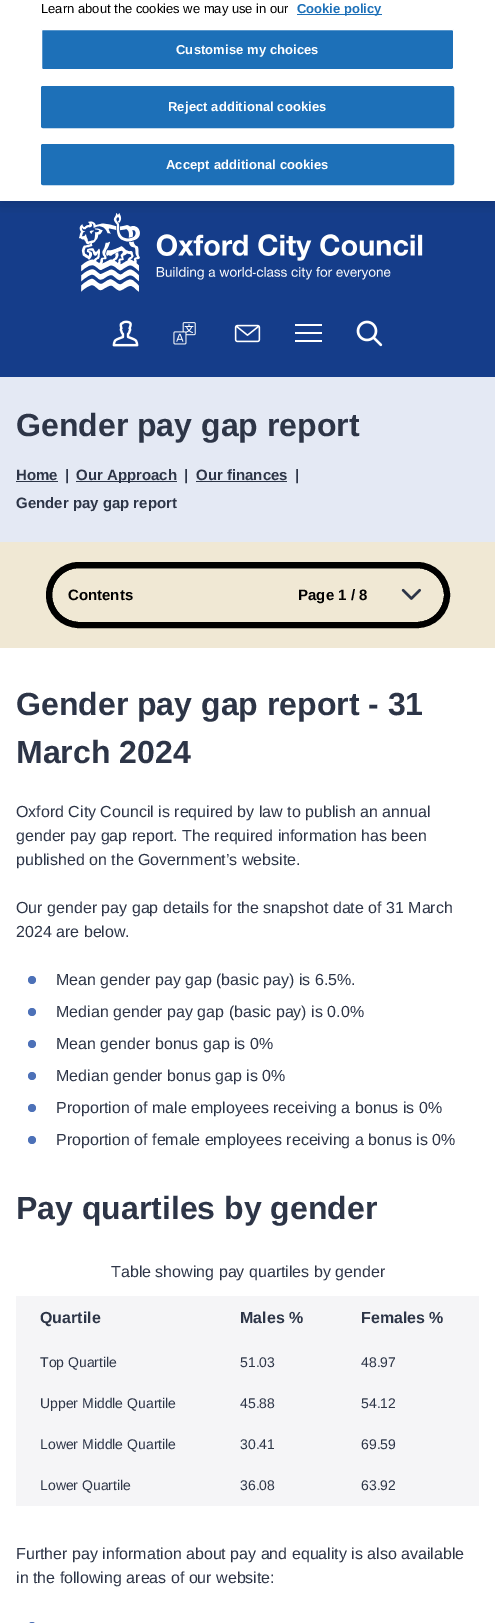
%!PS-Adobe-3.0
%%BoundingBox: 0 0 495 1623
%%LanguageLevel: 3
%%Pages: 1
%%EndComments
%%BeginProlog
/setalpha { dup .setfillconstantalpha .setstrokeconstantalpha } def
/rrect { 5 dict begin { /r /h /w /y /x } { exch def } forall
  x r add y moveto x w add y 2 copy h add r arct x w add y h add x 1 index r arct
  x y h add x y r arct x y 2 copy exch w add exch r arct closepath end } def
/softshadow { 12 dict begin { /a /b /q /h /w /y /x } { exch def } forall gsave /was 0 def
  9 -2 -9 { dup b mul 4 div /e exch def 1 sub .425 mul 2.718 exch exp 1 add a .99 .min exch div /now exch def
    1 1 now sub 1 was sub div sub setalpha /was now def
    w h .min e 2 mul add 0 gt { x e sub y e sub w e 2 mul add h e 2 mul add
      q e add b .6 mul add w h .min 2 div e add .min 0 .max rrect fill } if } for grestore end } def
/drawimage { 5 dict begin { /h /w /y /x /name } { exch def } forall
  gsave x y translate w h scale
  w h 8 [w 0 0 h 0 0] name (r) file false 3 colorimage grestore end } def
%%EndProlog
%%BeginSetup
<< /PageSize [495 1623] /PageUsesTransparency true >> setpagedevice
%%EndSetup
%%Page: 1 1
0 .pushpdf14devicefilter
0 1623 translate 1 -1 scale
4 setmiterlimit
1 setgray
0 0 495 1623 rectfill
0.082 0.239 0.541 setrgbcolor
0 201 495 176 rectfill
(images/1.raw) 79 213 344 79 drawimage
gsave
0 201 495 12 rectclip
0 setgray
0 -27 495 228 0 9 0.2 softshadow
grestore
0.114 0.439 0.722 setrgbcolor
297 14 85 1 rectfill
41.5 29.5 412 40 1.5 rrect gsave fill grestore
1 setgray
stroke
0.114 0.439 0.722 setrgbcolor
41.5 86.5 412 41 1.5 rrect gsave fill grestore
stroke
41.5 144.5 412 40 1.5 rrect gsave fill grestore
stroke
(images/2.raw) 112 320 27 27 drawimage
(images/3.raw) 173 322 23 23 drawimage
(images/4.raw) 234 324 27 19 drawimage
1 setgray
295 324 27 2 rectfill
295 332 27 2 rectfill
295 340 27 2 rectfill
(images/5.raw) 356 320 27 27 drawimage
0.894 0.914 0.957 setrgbcolor
0 377 495 165 rectfill
0.176 0.208 0.278 setrgbcolor
16 481 42 1 rectfill
76 481 101 1 rectfill
196 481 91 1 rectfill
0.941 0.91 0.831 setrgbcolor
0 542 495 106 rectfill
0 setgray
2 setlinewidth
51 567 394 56 28 rrect stroke
6 setlinewidth
49 565 398 60 30 rrect stroke
(images/6.raw) 401 588 20 12 drawimage
0.302 0.443 0.722 setrgbcolor
newpath 32 980 4 0 360 arc closepath fill
newpath 32 1012 4 0 360 arc closepath fill
newpath 32 1044 4 0 360 arc closepath fill
newpath 32 1076 4 0 360 arc closepath fill
newpath 32 1108 4 0 360 arc closepath fill
newpath 32 1140 4 0 360 arc closepath fill
0.961 0.961 0.969 setrgbcolor
16 1296 463 44 rectfill
16 1340 463 43 rectfill
16 1383 463 41 rectfill
16 1424 463 41 rectfill
16 1465 463 41 rectfill
0.302 0.443 0.722 setrgbcolor
28 1622 8 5 4 rrect fill
/LiberationSans-Regular [13 0 0 -13 0 0] selectfont
0 setgray
41 13 moveto (Learn about the cookies we may use in our) show
/LiberationSans-Bold [13 0 0 -13 0 0] selectfont
0.114 0.439 0.722 setrgbcolor
297 13 moveto (Cookie policy) show
1 setgray
176 54 moveto 0.1 0 (Customise my choices) ashow
168 111 moveto 0.1 0 (Reject additional cookies) ashow
166 169 moveto 0.1 0 (Accept additional cookies) ashow
/LiberationSans-Bold [32 0 0 -32 0 0] selectfont
0.176 0.208 0.278 setrgbcolor
16 436 moveto (Gender pay gap report) show
/LiberationSans-Bold [15 0 0 -15 0 0] selectfont
16 480 moveto (Home) show
65 480 moveto (|) show
76 480 moveto (Our Approach) show
184 480 moveto (|) show
196 480 moveto (Our finances) show
295 480 moveto (|) show
16 508 moveto (Gender pay gap report) show
0 setgray
68 600 moveto (Contents) show
298 600 moveto (Page 1 / 8) show
/LiberationSans-Bold [32 0 0 -32 0 0] selectfont
0.176 0.208 0.278 setrgbcolor
16 715 moveto (Gender pay gap report - 31) show
16 763 moveto (March 2024) show
/LiberationSans-Regular [16 0 0 -16 0 0] selectfont
16 817 moveto (Oxford City Council is required by law to publish an annual) show
16 841 moveto (gender pay gap report. The required information has been) show
16 865 moveto (published on the Government’s website.) show
16 913 moveto (Our gender pay gap details for the snapshot date of 31 March) show
16 937 moveto (2024 are below.) show
56 985 moveto (Mean gender pay gap \(basic pay\) is 6.5%.) show
56 1017 moveto (Median gender pay gap \(basic pay\) is 0.0%) show
56 1049 moveto (Mean gender bonus gap is 0%) show
56 1081 moveto (Median gender bonus gap is 0%) show
56 1113 moveto (Proportion of male employees receiving a bonus is 0%) show
56 1145 moveto (Proportion of female employees receiving a bonus is 0%) show
/LiberationSans-Bold [32 0 0 -32 0 0] selectfont
16 1219 moveto (Pay quartiles by gender) show
/LiberationSans-Regular [16 0 0 -16 0 0] selectfont
111 1277 moveto (Table showing pay quartiles by gender) show
/LiberationSans-Bold [16 0 0 -16 0 0] selectfont
40 1323 moveto (Quartile) show
240 1323 moveto (Males %) show
361 1323 moveto (Females %) show
/LiberationSans-Regular [14 0 0 -14 0 0] selectfont
40 1367 moveto (Top Quartile) show
240 1367 moveto (51.03) show
361 1367 moveto (48.97) show
40 1408 moveto (Upper Middle Quartile) show
240 1408 moveto (45.88) show
361 1408 moveto (54.12) show
40 1449 moveto (Lower Middle Quartile) show
240 1449 moveto (30.41) show
361 1449 moveto (69.59) show
40 1490 moveto (Lower Quartile) show
240 1490 moveto (36.08) show
361 1490 moveto (63.92) show
/LiberationSans-Regular [16 0 0 -16 0 0] selectfont
16 1559 moveto (Further pay information about pay and equality is also available) show
16 1583 moveto (in the following areas of our website:) show
.poppdf14devicefilter showpage
%%EOF
